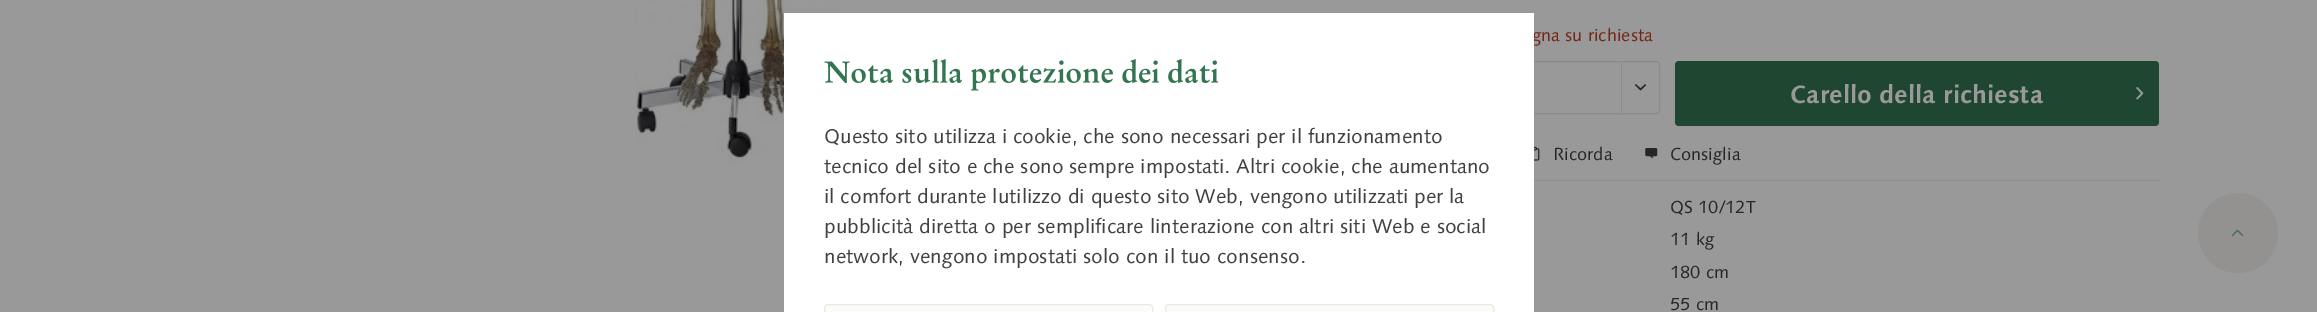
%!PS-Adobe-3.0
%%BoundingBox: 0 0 2317 312
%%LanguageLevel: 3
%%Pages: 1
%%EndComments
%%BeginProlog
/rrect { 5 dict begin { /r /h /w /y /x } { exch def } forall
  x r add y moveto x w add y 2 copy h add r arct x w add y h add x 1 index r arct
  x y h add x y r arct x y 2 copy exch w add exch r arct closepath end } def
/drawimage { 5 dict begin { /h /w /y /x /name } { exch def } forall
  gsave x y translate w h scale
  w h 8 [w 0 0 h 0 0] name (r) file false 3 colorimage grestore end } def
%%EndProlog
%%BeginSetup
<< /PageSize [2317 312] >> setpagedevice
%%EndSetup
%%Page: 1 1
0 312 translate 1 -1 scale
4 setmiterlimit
0.6 setgray
0 0 2317 312 rectfill
(images/2.raw) 635 0 211 163 drawimage
0.549 0.549 0.529 setrgbcolor
1391.5 61.5 268 52 3.5 rrect stroke
1621 63 1 50 rectfill
(images/3.raw) 1635 84 11 7 drawimage
0.118 0.275 0.188 setrgbcolor
1675 61 484 65 4 rrect fill
(images/4.raw) 2136 87 8 13 drawimage
0.549 0.549 0.529 setrgbcolor
1534 180 625 1 rectfill
(images/5.raw) 1534 146 6 15 drawimage
(images/6.raw) 1645 148 13 11 drawimage
0.576 0.573 0.565 setrgbcolor
newpath 2238 233 40 0 360 arc closepath fill
(images/7.raw) 2231 229 13 8 drawimage
/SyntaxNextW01-Regular [17.5 0 0 -17.5 0 0] selectfont
0.459 0.145 0.078 setrgbcolor
1532 41 moveto (gna su richiesta) show
1 setgray
784 13 750 299 rectfill
0.984 0.984 0.976 setrgbcolor
1166 305 327 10 2.5 rrect fill
0.918 0.914 0.882 setrgbcolor
1165.5 304.5 328 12 3.5 rrect stroke
0.984 0.984 0.976 setrgbcolor
825 305 326 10 2.5 rrect fill
0.918 0.914 0.882 setrgbcolor
824.5 304.5 328 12 3.5 rrect stroke
/SyntaxNextW01-Regular [20 0 0 -20 0 0] selectfont
0.251 0.251 0.247 setrgbcolor
824 263 moveto (network, vengono impostati solo con il tuo consenso.) show
824 233 moveto (pubblicità diretta o per semplificare linterazione con altri siti Web e social) show
824 203 moveto (il comfort durante lutilizzo di questo sito Web, vengono utilizzati per la) show
824 173 moveto (tecnico del sito e che sono sempre impostati. Altri cookie, che aumentano) show
824 143 moveto (Questo sito utilizza i cookie, che sono necessari per il funzionamento) show
(images/1.raw) 824 59 395 32 drawimage
/SyntaxNextW01-Bold [25 0 0 -25 0 0] selectfont
0.6 setgray
1790 103 moveto (Carello della richiesta) show
/SyntaxNextW01-Regular [17.5 0 0 -17.5 0 0] selectfont
0.149 setgray
1553 160 moveto (Ricorda) show
1670 160 moveto (Consiglia) show
1670 213 moveto (QS 10/12T) show
1670 245 moveto (11 kg) show
1670 278 moveto (180 cm) show
1670 310 moveto (55 cm) show
showpage
%%EOF
